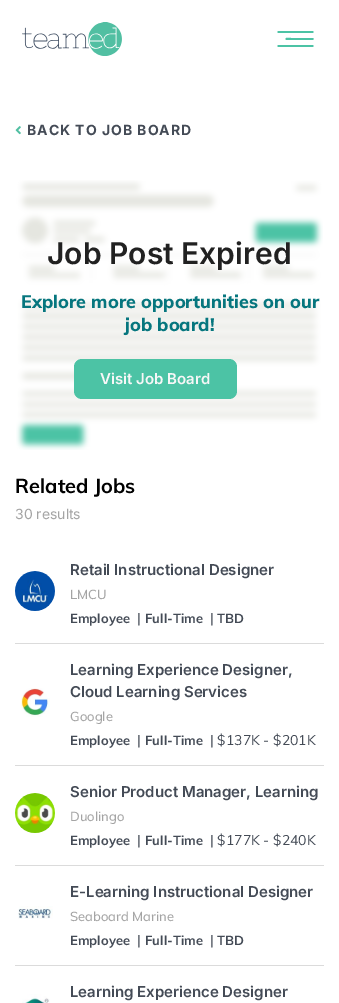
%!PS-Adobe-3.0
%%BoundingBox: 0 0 339 1003
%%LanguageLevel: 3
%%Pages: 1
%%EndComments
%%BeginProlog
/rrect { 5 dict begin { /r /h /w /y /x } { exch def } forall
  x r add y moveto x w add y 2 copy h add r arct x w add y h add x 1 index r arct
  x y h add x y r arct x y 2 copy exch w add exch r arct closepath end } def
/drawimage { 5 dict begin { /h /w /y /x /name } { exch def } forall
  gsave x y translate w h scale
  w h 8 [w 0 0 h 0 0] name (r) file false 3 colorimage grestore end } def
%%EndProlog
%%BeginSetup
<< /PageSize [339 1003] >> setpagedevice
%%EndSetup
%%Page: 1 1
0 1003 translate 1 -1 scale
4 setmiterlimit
1 setgray
0 0 339 1003 rectfill
(images/1.raw) 22 22 100 34 drawimage
0.298 0.765 0.647 setrgbcolor
newpath 312.5 40 moveto 286 40 lineto 285.5 39 lineto 285.5 37 289 38 291 38 curveto 313 38 lineto 314 38.5 313.5 40 312.5 40 curveto closepath 312.5 47 moveto 278.5 47 lineto 278 47 277.5 46.5 277.5 46 curveto 277.5 45.5 278 45 278.5 45 curveto 312.5 45 lineto 313 45 313.5 45.5 313.5 46 curveto 313.5 46.5 313 47 312.5 47 curveto closepath 312.5 33 moveto 278.5 33 lineto 278 33 277.5 32.5 277.5 32 curveto 277.5 31.5 278 31 278.5 31 curveto 312.5 31 lineto 313 31 313.5 31.5 313.5 32 curveto 313.5 32.5 313 33 312.5 33 curveto closepath fill
(images/2.raw) 15 126 6 9 drawimage
(images/3.raw) 16 180 307 270 drawimage
74 359 163 40 8 rrect fill
0.859 setgray
15 643 309 1 rectfill
(images/4.raw) 15 571 40 40 drawimage
15 765 309 1 rectfill
(images/5.raw) 21 688 29 29 drawimage
15 865 309 1 rectfill
(images/6.raw) 15 793 40 40 drawimage
15 965 309 1 rectfill
(images/7.raw) 18 906 35 13 drawimage
(images/8.raw) 22 994 28 9 drawimage
/Inter-Bold [14 0 0 -14 0 0] selectfont
0.267 0.294 0.337 setrgbcolor
27 135 moveto 1 0 (BACK TO JOB BOARD) ashow
/Inter-SemiBold [30 0 0 -30 0 0] selectfont
0.129 setgray
47 264 moveto (Job Post Expired) show
/Muli-ExtraBold [18 0 0 -18 0 0] selectfont
0.024 0.463 0.494 setrgbcolor
21 308 moveto (Explore more opportunities on our) show
125 331 moveto (job board!) show
/Inter-SemiBold [15 0 0 -15 0 0] selectfont
0.969 setgray
100 384 moveto (Visit Job Board) show
/Muli-Bold [20 0 0 -20 0 0] selectfont
0 setgray
15 493 moveto (Related Jobs) show
/Inter-Regular [14 0 0 -14 0 0] selectfont
0.643 setgray
15 519 moveto (30 results) show
/Inter-SemiBold [15 0 0 -15 0 0] selectfont
0.267 0.294 0.337 setrgbcolor
70 575 moveto (Retail Instructional Designer) show
/Muli-Medium [13 0 0 -13 0 0] selectfont
0.643 setgray
70 599 moveto (LMCU) show
/Muli-Bold [13 0 0 -13 0 0] selectfont
0.267 0.294 0.337 setrgbcolor
70 623 moveto (Employee) show
/Muli-Regular [14 0 0 -14 0 0] selectfont
137 623 moveto (|) show
/Muli-Bold [13 0 0 -13 0 0] selectfont
145 623 moveto (Full-Time) show
/Muli-Regular [14 0 0 -14 0 0] selectfont
210 623 moveto (|) show
/Muli-Bold [13 0 0 -13 0 0] selectfont
217 623 moveto (TBD) show
/Inter-SemiBold [15 0 0 -15 0 0] selectfont
70 675 moveto (Learning Experience Designer,) show
70 697 moveto (Cloud Learning Services) show
/Muli-Medium [13 0 0 -13 0 0] selectfont
0.643 setgray
70 721 moveto (Google) show
/Muli-Bold [13 0 0 -13 0 0] selectfont
0.267 0.294 0.337 setrgbcolor
70 745 moveto (Employee) show
/Muli-Regular [14 0 0 -14 0 0] selectfont
137 745 moveto (|) show
/Muli-Bold [13 0 0 -13 0 0] selectfont
145 745 moveto (Full-Time) show
/Muli-Regular [14 0 0 -14 0 0] selectfont
210 745 moveto (| $137K - $201K) show
/Inter-SemiBold [15 0 0 -15 0 0] selectfont
70 797 moveto (Senior Product Manager, Learning) show
/Muli-Medium [13 0 0 -13 0 0] selectfont
0.643 setgray
70 821 moveto (Duolingo) show
/Muli-Bold [13 0 0 -13 0 0] selectfont
0.267 0.294 0.337 setrgbcolor
70 845 moveto (Employee) show
/Muli-Regular [14 0 0 -14 0 0] selectfont
137 845 moveto (|) show
/Muli-Bold [13 0 0 -13 0 0] selectfont
145 845 moveto (Full-Time) show
/Muli-Regular [14 0 0 -14 0 0] selectfont
210 845 moveto (| $177K - $240K) show
/Inter-SemiBold [15 0 0 -15 0 0] selectfont
70 897 moveto (E-Learning Instructional Designer) show
/Muli-Medium [13 0 0 -13 0 0] selectfont
0.643 setgray
70 921 moveto (Seaboard Marine) show
/Muli-Bold [13 0 0 -13 0 0] selectfont
0.267 0.294 0.337 setrgbcolor
70 945 moveto (Employee) show
/Muli-Regular [14 0 0 -14 0 0] selectfont
137 945 moveto (|) show
/Muli-Bold [13 0 0 -13 0 0] selectfont
145 945 moveto (Full-Time) show
/Muli-Regular [14 0 0 -14 0 0] selectfont
210 945 moveto (|) show
/Muli-Bold [13 0 0 -13 0 0] selectfont
217 945 moveto (TBD) show
/Inter-SemiBold [15 0 0 -15 0 0] selectfont
70 997 moveto (Learning Experience Designer) show
showpage
%%EOF
